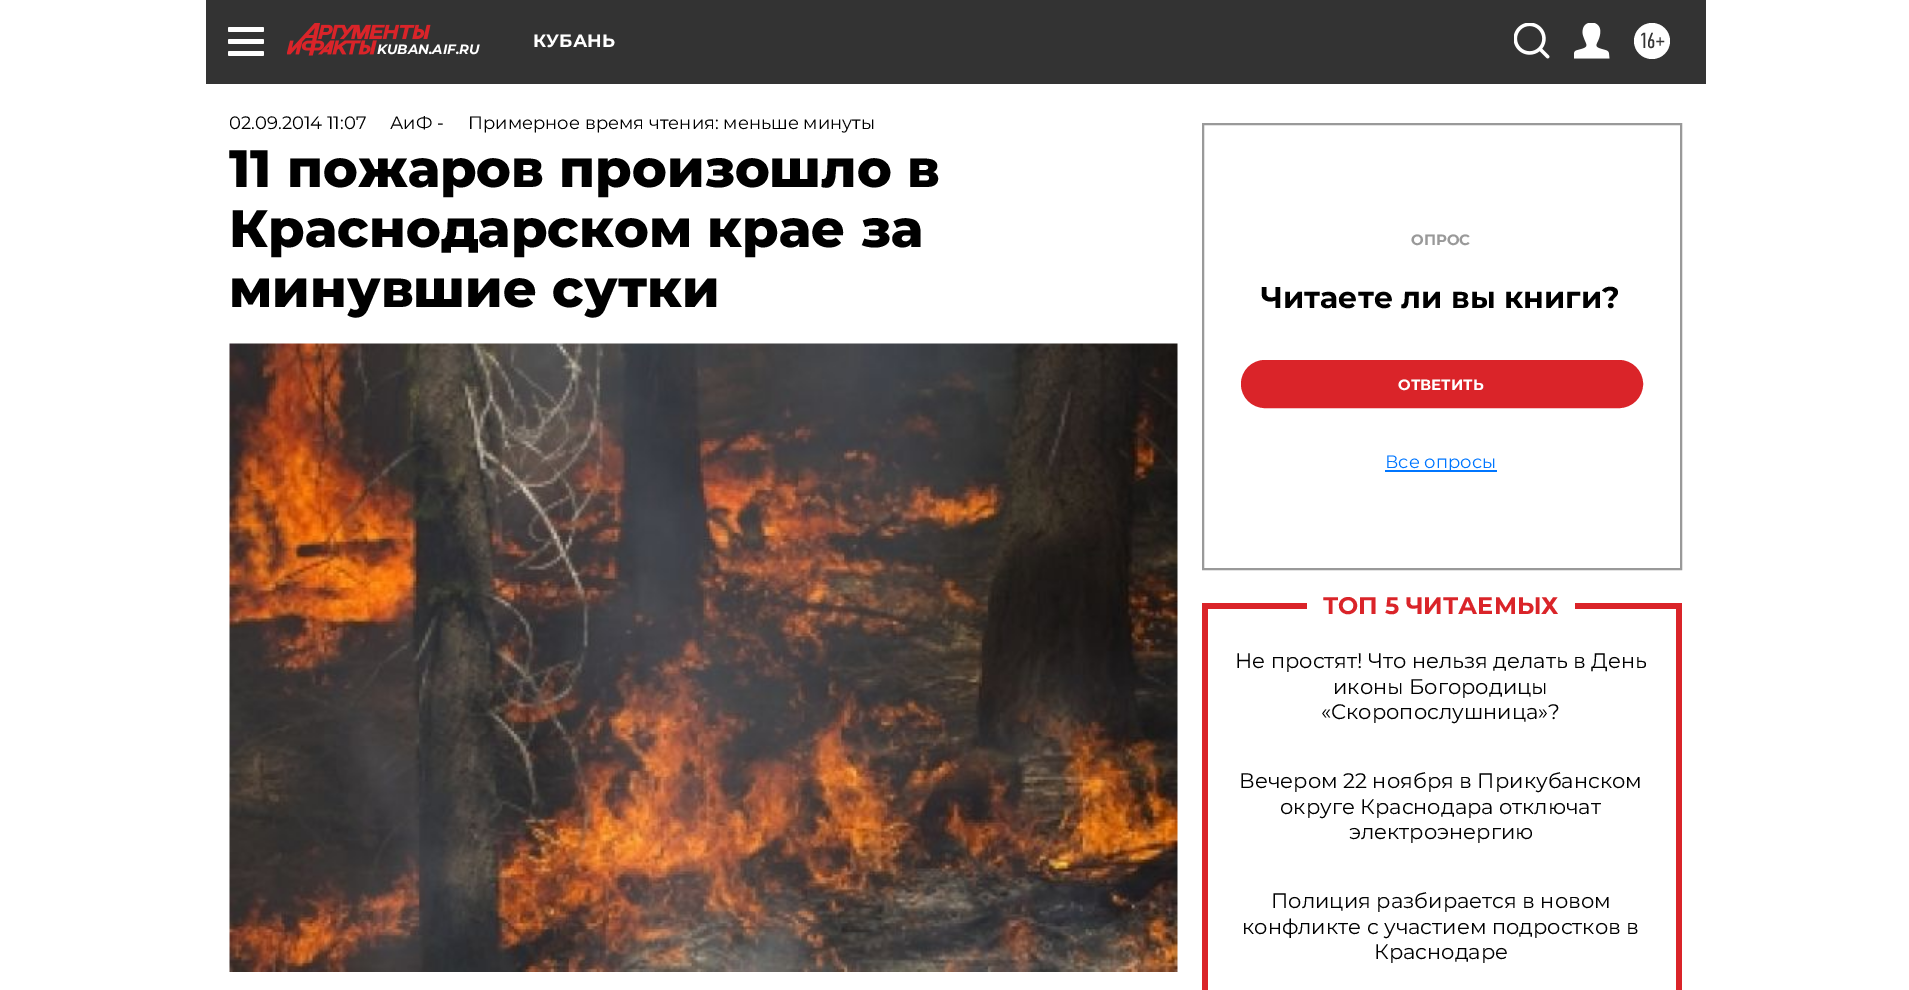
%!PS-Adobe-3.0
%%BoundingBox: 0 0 1909 990
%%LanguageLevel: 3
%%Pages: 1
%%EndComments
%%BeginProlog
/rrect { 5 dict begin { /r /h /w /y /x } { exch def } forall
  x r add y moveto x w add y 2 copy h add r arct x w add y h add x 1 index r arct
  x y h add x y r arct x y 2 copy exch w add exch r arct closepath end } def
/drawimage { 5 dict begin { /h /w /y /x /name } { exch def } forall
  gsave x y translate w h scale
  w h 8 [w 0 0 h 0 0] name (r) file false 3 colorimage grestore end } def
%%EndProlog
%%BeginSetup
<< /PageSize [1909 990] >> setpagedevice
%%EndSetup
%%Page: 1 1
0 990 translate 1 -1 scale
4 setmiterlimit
1 setgray
0 0 1909 990 rectfill
0.2 setgray
206 0 1500 84 rectfill
1 setgray
228 27 36 5 1.5 rrect fill
228 39 36 5 1.5 rrect fill
228 51 36 5 1.5 rrect fill
(images/1.raw) 1514 23 36 36 drawimage
(images/2.raw) 1574 23 36 36 drawimage
newpath 1652 41 18 0 360 arc closepath fill
(images/3.raw) 287 23 144 33 drawimage
(images/4.raw) 229 343 949 629 drawimage
0.6 setgray
2 setlinewidth
1203 124 478 445 rectstroke
0.855 0.141 0.161 setrgbcolor
1242.5 361.5 399 45 22.5 rrect gsave fill grestore
3 setlinewidth
stroke
0 0.463 1 setrgbcolor
1385 470 112 2 rectfill
0.855 0.141 0.161 setrgbcolor
1202 603 6 387 rectfill
1202 603 105 6 rectfill
1676 603 6 387 rectfill
1575 603 107 6 rectfill
/Montserrat-Bold [18 0 0 -18 0 0] selectfont
1 setgray
533 47 moveto (КУБАНЬ) show
/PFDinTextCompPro-Regular [22 0 0 -22 0 0] selectfont
0.2 setgray
1639 48 moveto (16+) show
/Montserrat-BoldItalic [13.5 0 0 -13.5 0 0] selectfont
1 setgray
377 54 moveto (KUBAN.AIF.RU) show
gsave
230 108 948 32 rectclip
/Montserrat-Regular [18 0 0 -18 0 0] selectfont
0 setgray
229 129 moveto (02.09.2014 11:07) show
grestore
/Montserrat-Regular [18 0 0 -18 0 0] selectfont
0 setgray
390 129 moveto (АиФ -) show
468 129 moveto (Примерное время чтения: меньше минуты) show
/Montserrat-ExtraBold [52.5 0 0 -52.5 0 0] selectfont
229 187 moveto (11 пожаров произошло в) show
229 247 moveto (Краснодарском крае за) show
229 307 moveto (минувшие сутки) show
/Montserrat-Bold [15 0 0 -15 0 0] selectfont
0.6 setgray
1411 245 moveto (ОПРОС) show
/Montserrat-Bold [30 0 0 -30 0 0] selectfont
0 setgray
1261 308 moveto (Читаете ли вы книги?) show
/Montserrat-Bold [15 0 0 -15 0 0] selectfont
1 setgray
1398 390 moveto (ОТВЕТИТЬ) show
/Montserrat-Regular [18 0 0 -18 0 0] selectfont
0 0.463 1 setrgbcolor
1385 468 moveto (Все опросы) show
/Montserrat-Bold [24 0 0 -24 0 0] selectfont
0.855 0.141 0.161 setrgbcolor
1323 614 moveto (ТОП 5 ЧИТАЕМЫХ) show
/Montserrat-Regular [21 0 0 -21 0 0] selectfont
0 setgray
1235 668 moveto (Не простят! Что нельзя делать в День) show
1333 694 moveto (иконы Богородицы) show
1321 719 moveto («Скоропослушница»?) show
1239 788 moveto (Вечером 22 ноября в Прикубанском) show
1280 814 moveto (округе Краснодара отключат) show
1349 839 moveto (электроэнергию) show
1271 908 moveto (Полиция разбирается в новом) show
1242 934 moveto (конфликте с участием подростков в) show
1374 959 moveto (Краснодаре) show
showpage
%%EOF
